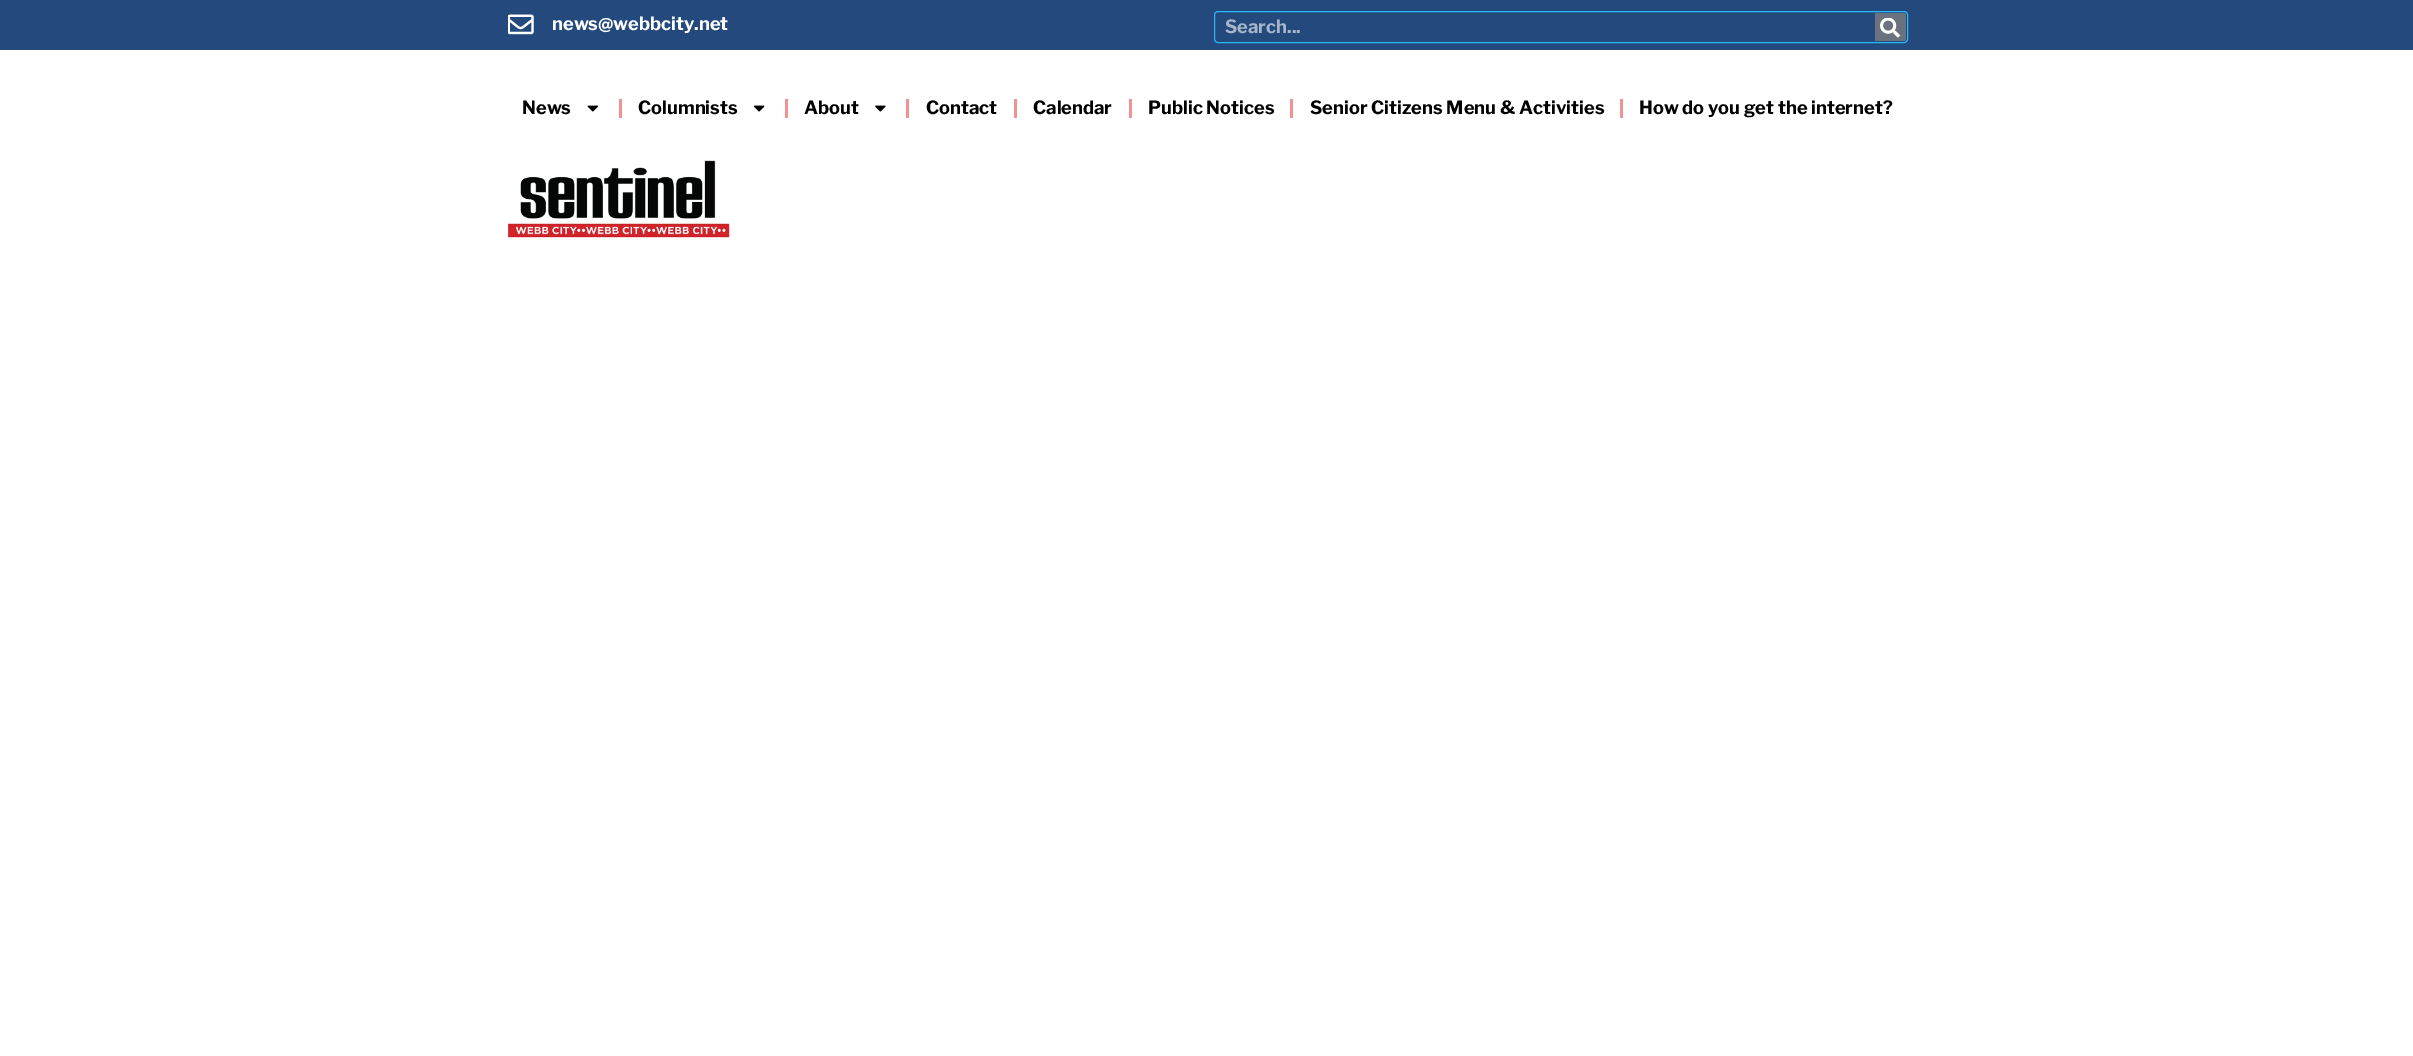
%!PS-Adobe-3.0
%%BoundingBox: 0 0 2413 1056
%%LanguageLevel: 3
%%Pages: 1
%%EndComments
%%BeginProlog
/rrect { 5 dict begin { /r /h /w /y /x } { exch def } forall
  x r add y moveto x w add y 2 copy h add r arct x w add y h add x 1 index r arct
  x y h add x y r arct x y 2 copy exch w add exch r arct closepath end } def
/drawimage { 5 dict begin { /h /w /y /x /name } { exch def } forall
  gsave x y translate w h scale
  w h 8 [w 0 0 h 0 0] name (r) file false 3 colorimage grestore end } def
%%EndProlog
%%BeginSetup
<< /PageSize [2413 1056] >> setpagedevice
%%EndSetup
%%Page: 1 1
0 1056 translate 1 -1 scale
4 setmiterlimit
1 setgray
0 0 2413 1056 rectfill
0.137 0.286 0.49 setrgbcolor
0 0 2413 50 rectfill
(images/1.raw) 508 14 26 21 drawimage
0.153 0.725 0.949 setrgbcolor
1214.5 11.5 693 31 3.5 rrect stroke
0.412 0.447 0.49 setrgbcolor
newpath 1875 13 moveto 1903.5 13 lineto 1905 13 1906 14 1906 15.5 curveto 1906 38.5 lineto 1906 40 1905 41 1903.5 41 curveto 1875 41 lineto closepath fill
(images/2.raw) 1880 18 20 20 drawimage
(images/3.raw) 587 105 12 7 drawimage
0.949 0.569 0.569 setrgbcolor
619 99 3 19 rectfill
(images/4.raw) 753 105 12 7 drawimage
785 99 3 19 rectfill
(images/5.raw) 875 105 11 7 drawimage
906 99 3 19 rectfill
1014 99 3 19 rectfill
1129 99 3 19 rectfill
1290 99 3 19 rectfill
1620 99 3 19 rectfill
(images/6.raw) 508 160 222 78 drawimage
/LibreFranklin-Bold [18.25 0 0 -18.25 0 0] selectfont
1 setgray
552 30 moveto (news@webbcity.net) show
0.655 0.714 0.796 setrgbcolor
1225 33 moveto (Search...) show
0 setgray
522 114 moveto (News) show
638 114 moveto (Columnists) show
804 114 moveto (About) show
926 114 moveto (Contact) show
1033 114 moveto (Calendar) show
1148 114 moveto (Public Notices) show
1310 114 moveto (Senior Citizens Menu & Activities) show
1639 114 moveto (How do you get the internet?) show
showpage
%%EOF
